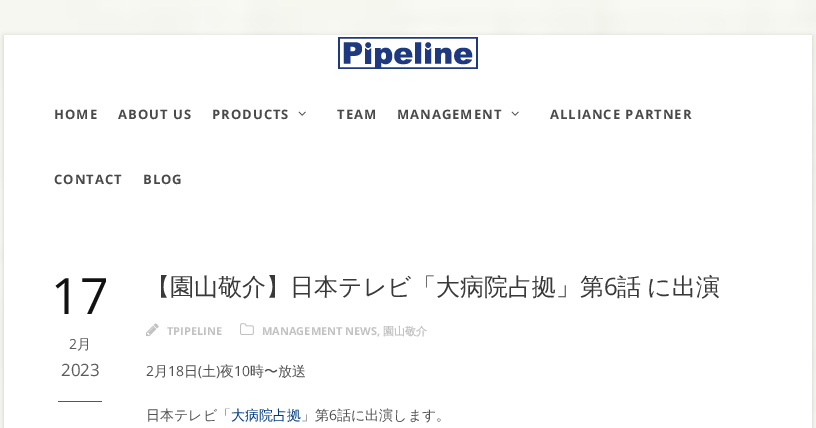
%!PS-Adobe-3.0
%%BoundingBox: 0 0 816 428
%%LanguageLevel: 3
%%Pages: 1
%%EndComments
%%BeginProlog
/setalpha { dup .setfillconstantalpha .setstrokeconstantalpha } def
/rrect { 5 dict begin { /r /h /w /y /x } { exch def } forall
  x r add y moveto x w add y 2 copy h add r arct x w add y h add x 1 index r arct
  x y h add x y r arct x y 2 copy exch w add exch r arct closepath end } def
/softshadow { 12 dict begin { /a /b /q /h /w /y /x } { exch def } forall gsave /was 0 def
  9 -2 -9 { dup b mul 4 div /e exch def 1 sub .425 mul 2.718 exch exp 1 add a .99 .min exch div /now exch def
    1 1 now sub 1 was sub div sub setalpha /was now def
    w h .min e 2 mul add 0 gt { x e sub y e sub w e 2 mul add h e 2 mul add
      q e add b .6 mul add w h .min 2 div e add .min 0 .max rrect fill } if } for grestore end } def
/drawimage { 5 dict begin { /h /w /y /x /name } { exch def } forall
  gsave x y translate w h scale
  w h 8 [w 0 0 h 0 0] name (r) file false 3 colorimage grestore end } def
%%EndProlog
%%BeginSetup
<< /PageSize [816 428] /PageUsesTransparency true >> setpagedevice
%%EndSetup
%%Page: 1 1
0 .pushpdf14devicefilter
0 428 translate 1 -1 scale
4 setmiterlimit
1 setgray
0 0 816 428 rectfill
(images/1.raw) 0 0 816 428 drawimage
0 setgray
4 36 808 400 0 2.5 0.15 softshadow
1 setgray
4 35 808 393 rectfill
(images/2.raw) 338 37 140 32 drawimage
(images/3.raw) 298 111 8 5 drawimage
(images/3.raw) 511 111 8 5 drawimage
0.031 0.435 0.667 setrgbcolor
58 401 44 1 rectfill
(images/4.raw) 146 323 13 14 drawimage
(images/5.raw) 240 323 14 12 drawimage
/OpenSans-Bold [13 0 0 -13 0 0] selectfont
0.286 setgray
54 119 moveto 1 0 (HOME) ashow
118 119 moveto 1 0 (ABOUT US) ashow
212 119 moveto 1 0 (PRODUCTS) ashow
337 119 moveto 1 0 (TEAM) ashow
397 119 moveto 1 0 (MANAGEMENT) ashow
550 119 moveto 1 0 (ALLIANCE PARTNER) ashow
54 184 moveto 1 0 (CONTACT) ashow
143 184 moveto 1 0 (BLOG) ashow
/OpenSans-Regular [50 0 0 -50 0 0] selectfont
0.071 setgray
51 314 moveto (17) show
/OpenSans-Regular [14 0 0 -14 0 0] selectfont
0.361 setgray
69 349 moveto (2) show
/WenQuanYiZenHei-Medium [14 0 0 -14 0 0] selectfont
77 349 moveto (月) show
/OpenSans-Regular [17 0 0 -17 0 0] selectfont
61 376 moveto (2023) show
/WenQuanYiZenHei-Medium [24 0 0 -24 0 0] selectfont
0.224 setgray
146 295 moveto (【園山敬介】日本テレビ「大病院占拠」第) show
/OpenSans-Regular [24 0 0 -24 0 0] selectfont
604 295 moveto (6) show
/WenQuanYiZenHei-Medium [24 0 0 -24 0 0] selectfont
617 295 moveto -1 0 32 (話 に出演) widthshow
/OpenSans-Bold [11 0 0 -11 0 0] selectfont
0.761 setgray
167 335 moveto (TPIPELINE) show
262 335 moveto (MANAGEMENT NEWS,) show
/WenQuanYiZenHei-Bold [11 0 0 -11 0 0] selectfont
383 335 moveto (園山敬介) show
/OpenSans-Regular [14 0 0 -14 0 0] selectfont
0.318 setgray
146 376 moveto (2) show
/WenQuanYiZenHei-Medium [14 0 0 -14 0 0] selectfont
154 376 moveto (月) show
/OpenSans-Regular [14 0 0 -14 0 0] selectfont
168 376 moveto (18) show
/WenQuanYiZenHei-Medium [14 0 0 -14 0 0] selectfont
184 376 moveto (日 土 夜) show
/OpenSans-Regular [14 0 0 -14 0 0] selectfont
234 376 moveto (10) show
/WenQuanYiZenHei-Medium [14 0 0 -14 0 0] selectfont
250 376 moveto (時〜放送) show
/OpenSans-Regular [14 0 0 -14 0 0] selectfont
198 376 moveto (\() show
216 376 moveto (\)) show
/WenQuanYiZenHei-Medium [14 0 0 -14 0 0] selectfont
146 420 moveto (日本テレビ「) show
0.008 0.235 0.498 setrgbcolor
231 420 moveto (大病院占拠) show
0.318 setgray
301 420 moveto (」第) show
/OpenSans-Regular [14 0 0 -14 0 0] selectfont
329 420 moveto (6) show
/WenQuanYiZenHei-Medium [14 0 0 -14 0 0] selectfont
337 420 moveto (話に出演します。) show
.poppdf14devicefilter showpage
%%EOF
